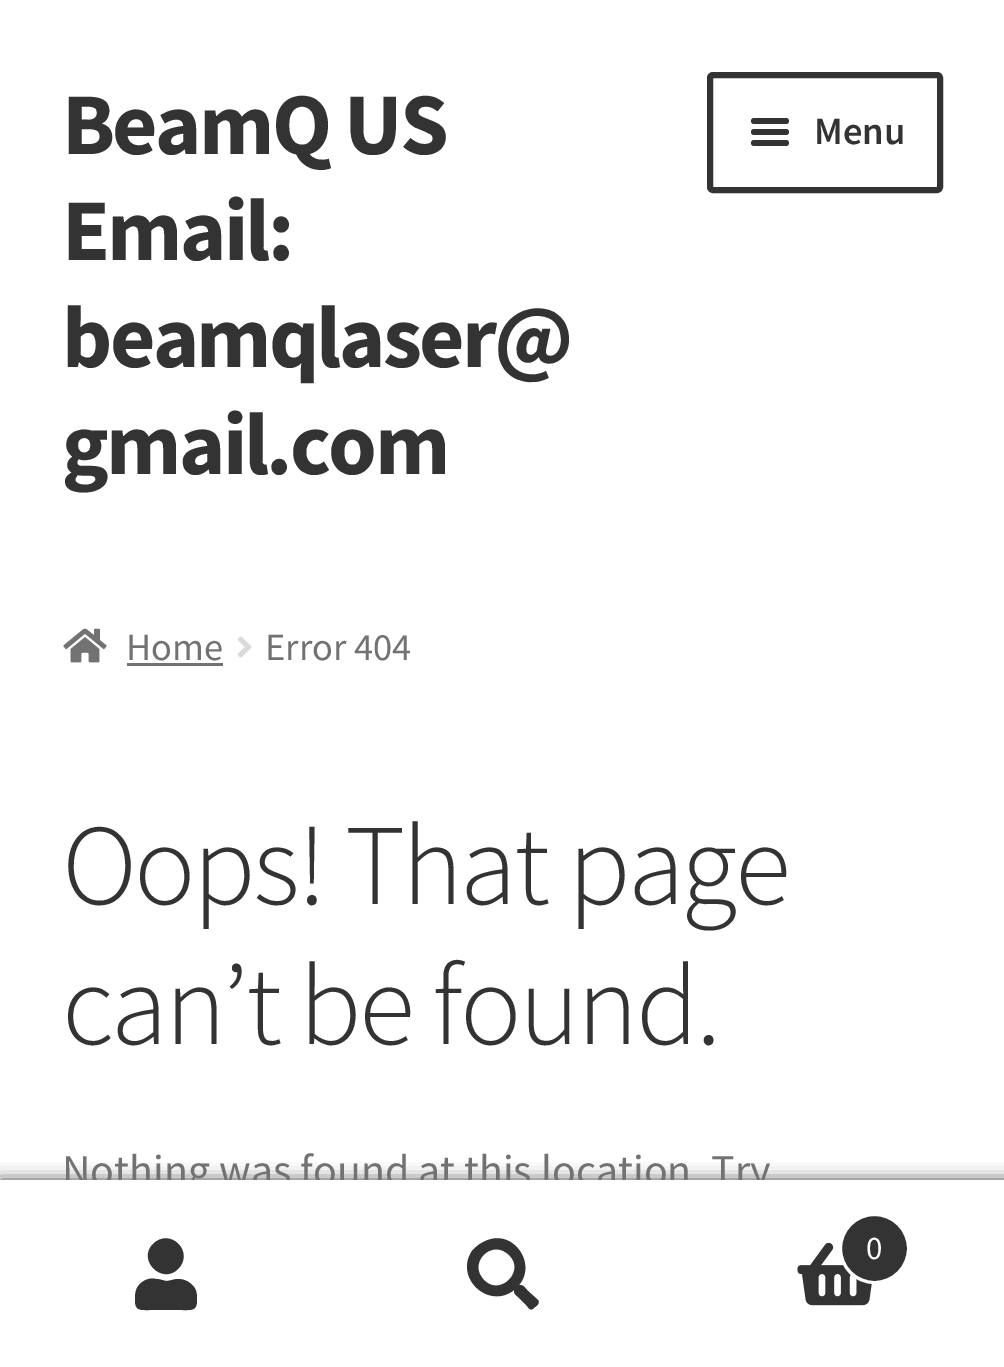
%!PS-Adobe-3.0
%%BoundingBox: 0 0 1004 1367
%%LanguageLevel: 3
%%Pages: 1
%%EndComments
%%BeginProlog
/setalpha { dup .setfillconstantalpha .setstrokeconstantalpha } def
/rrect { 5 dict begin { /r /h /w /y /x } { exch def } forall
  x r add y moveto x w add y 2 copy h add r arct x w add y h add x 1 index r arct
  x y h add x y r arct x y 2 copy exch w add exch r arct closepath end } def
/softshadow { 12 dict begin { /a /b /q /h /w /y /x } { exch def } forall gsave /was 0 def
  9 -2 -9 { dup b mul 4 div /e exch def 1 sub .425 mul 2.718 exch exp 1 add a .99 .min exch div /now exch def
    1 1 now sub 1 was sub div sub setalpha /was now def
    w h .min e 2 mul add 0 gt { x e sub y e sub w e 2 mul add h e 2 mul add
      q e add b .6 mul add w h .min 2 div e add .min 0 .max rrect fill } if } for grestore end } def
/drawimage { 5 dict begin { /h /w /y /x /name } { exch def } forall
  gsave x y translate w h scale
  w h 8 [w 0 0 h 0 0] name (r) file false 3 colorimage grestore end } def
%%EndProlog
%%BeginSetup
<< /PageSize [1004 1367] /PageUsesTransparency true >> setpagedevice
%%EndSetup
%%Page: 1 1
0 .pushpdf14devicefilter
0 1367 translate 1 -1 scale
4 setmiterlimit
1 setgray
0 0 1004 1367 rectfill
0.2 setgray
6 setlinewidth
710 75 230 115 3 rrect stroke
751 118 38 6 3 rrect fill
751 129 38 6 3 rrect fill
751 140 38 6 3 rrect fill
(images/1.raw) 63 628 44 35 drawimage
0.447 setgray
127 663 96 3 rectfill
(images/2.raw) 237 636 15 22 drawimage
0 setgray
0 1180 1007 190 0 8 0.7 softshadow
/SourceSansPro-Bold [88 0 0 -88 0 0] selectfont
0.2 setgray
62 154 moveto -2.75 0 (BeamQ US) ashow
62 260 moveto -2.75 0 (Email:) ashow
62 367 moveto -2.75 0 (beamqlaser@) ashow
62 474 moveto -2.75 0 (gmail.com) ashow
/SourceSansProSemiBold-SemiBold [38.5 0 0 -38.5 0 0] selectfont
814 144 moveto (Menu) show
/SourceSansPro-Regular [38.5 0 0 -38.5 0 0] selectfont
0.447 setgray
126 660 moveto (Home) show
265 660 moveto (Error 404) show
/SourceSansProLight-Light [115.25 0 0 -115.25 0 0] selectfont
0.2 setgray
62 904 moveto -2.75 0 (Oops! That page) ashow
62 1044 moveto -2.75 0 (can’t be found.) ashow
/SourceSansPro-Regular [44 0 0 -44 0 0] selectfont
0.447 setgray
62 1185 moveto (Nothing was found at this location. Try) show
1 setgray
0 1180 1004 3 rectfill
0 1183 1004 184 rectfill
0.2 setgray
newpath 178 1269 moveto 162 1285 137 1260 153 1244 curveto 170 1227 195 1252 178 1269 curveto closepath 178 1279 moveto 185 1279 190 1282 194 1287 curveto 197 1291 197 1295 197 1300 curveto 197 1311 192 1310 182 1310 curveto 150 1310 lineto 140 1310 135 1311 135 1300 curveto 135 1296 135 1292 137 1288 curveto 140 1282 148 1277 156 1279 curveto 158 1279 lineto 166 1281 lineto 170 1281 174 1279 178 1279 curveto closepath fill
newpath 538 1300 moveto 540 1303 537 1306 535 1307 curveto 531 1311 530 1310 527 1306 curveto 518 1297 lineto 515 1294 514 1294 514 1290 curveto 489 1310 454 1278 472 1251 curveto 476 1246 482 1242 488 1240 curveto 496 1237 505 1238 512 1243 curveto 526 1253 530 1272 519 1285 curveto 524 1285 524 1287 528 1291 curveto closepath 484 1280 moveto 500 1297 526 1271 509 1255 curveto 492 1238 467 1263 484 1280 curveto closepath fill
(images/3.raw) 797 1242 75 64 drawimage
newpath 874.5 1248.5 34 0 360 arc closepath gsave fill grestore
1 setgray
3 setlinewidth
stroke
/SourceSansPro-Regular [33 0 0 -33 0 0] selectfont
866 1259 moveto (0) show
.poppdf14devicefilter showpage
%%EOF
